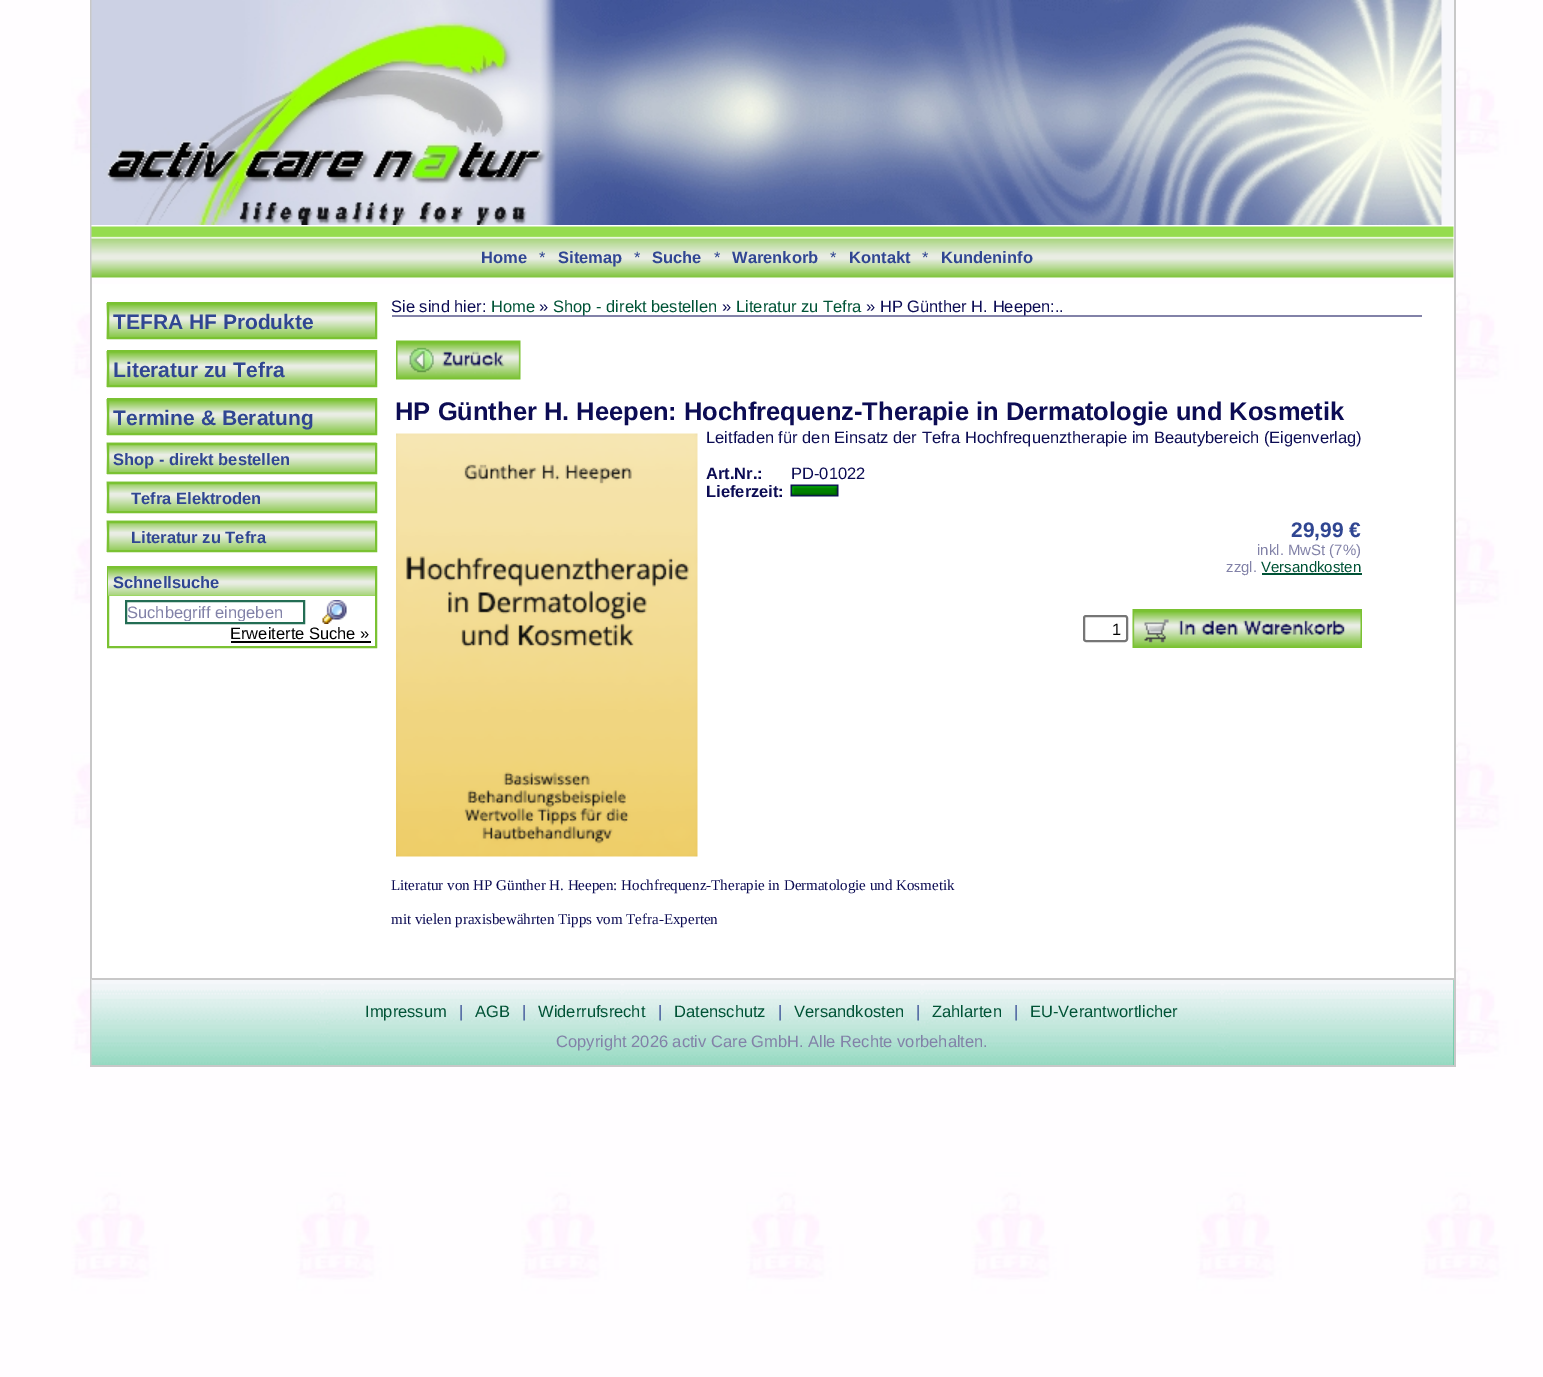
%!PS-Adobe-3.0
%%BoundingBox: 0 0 1543 1377
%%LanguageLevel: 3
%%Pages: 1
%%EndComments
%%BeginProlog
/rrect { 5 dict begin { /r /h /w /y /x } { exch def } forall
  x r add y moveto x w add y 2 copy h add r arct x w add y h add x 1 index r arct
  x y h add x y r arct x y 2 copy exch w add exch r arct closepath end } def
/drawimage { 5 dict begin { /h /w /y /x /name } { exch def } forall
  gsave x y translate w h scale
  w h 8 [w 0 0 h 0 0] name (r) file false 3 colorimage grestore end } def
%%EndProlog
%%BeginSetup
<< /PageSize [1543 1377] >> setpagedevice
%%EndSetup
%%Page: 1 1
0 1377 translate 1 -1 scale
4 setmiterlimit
1 setgray
0 0 1543 1377 rectfill
(images/1.raw) 0 0 1543 1377 drawimage
92 284 1362 694 rectfill
0.784 setgray
1454 0 2 1067 rectfill
90 1065 1365 2 rectfill
90 0 2 1067 rectfill
0.969 0.969 0.984 setrgbcolor
1443 0 11 225 rectfill
(images/2.raw) 91 0 1352 225 drawimage
(images/3.raw) 91 225 1363 53 drawimage
(images/4.raw) 106 303 269 36 drawimage
0.478 0.761 0.196 setrgbcolor
2 setlinewidth
108 303 268 35 rectstroke
(images/5.raw) 106 351 269 36 drawimage
108 351 268 35 rectstroke
(images/6.raw) 106 399 269 36 drawimage
108 399 268 35 rectstroke
(images/7.raw) 106 442 271 32 drawimage
108 444 268 29 rectstroke
(images/7.raw) 106 481 271 32 drawimage
108 483 268 29 rectstroke
(images/7.raw) 106 520 271 32 drawimage
108 522 268 29 rectstroke
108 567 268 80 rectstroke
0.584 0.863 0.306 setrgbcolor
108 595 267 1 rectfill
(images/8.raw) 108 567 267 29 drawimage
0.137 0.427 0.329 setrgbcolor
126 601 178 22 rectstroke
(images/9.raw) 322 600 25 24 drawimage
0 setgray
231 641 140 2 rectfill
0.51 0.51 0.659 setrgbcolor
392 315 1030 2 rectfill
(images/10.raw) 396 340 125 40 drawimage
(images/11.raw) 396 433 302 424 drawimage
(images/12.raw) 790 484 49 13 drawimage
0 0.325 0.212 setrgbcolor
1262 573 100 2 rectfill
0.463 setgray
1084 616 43 25 2 rrect stroke
(images/13.raw) 1132 609 230 39 drawimage
0.251 0.749 0.561 setrgbcolor
1453 980 1 85 rectfill
(images/14.raw) 91 979 1363 86 drawimage
0.784 setgray
92 978 1362 2 rectfill
/LiberationSans-Bold [16.5 0 0 -16.5 0 0] selectfont
0.188 0.275 0.573 setrgbcolor
481 263 moveto (Home) show
/LiberationSans-Regular [16.5 0 0 -16.5 0 0] selectfont
539 263 moveto (*) show
/LiberationSans-Bold [16.5 0 0 -16.5 0 0] selectfont
558 263 moveto (Sitemap) show
/LiberationSans-Regular [16.5 0 0 -16.5 0 0] selectfont
634 263 moveto (*) show
/LiberationSans-Bold [16.5 0 0 -16.5 0 0] selectfont
652 263 moveto (Suche) show
/LiberationSans-Regular [16.5 0 0 -16.5 0 0] selectfont
714 263 moveto (*) show
/LiberationSans-Bold [16.5 0 0 -16.5 0 0] selectfont
732 263 moveto (Warenkorb) show
/LiberationSans-Regular [16.5 0 0 -16.5 0 0] selectfont
830 263 moveto (*) show
/LiberationSans-Bold [16.5 0 0 -16.5 0 0] selectfont
849 263 moveto (Kontakt) show
/LiberationSans-Regular [16.5 0 0 -16.5 0 0] selectfont
922 263 moveto (*) show
/LiberationSans-Bold [16.5 0 0 -16.5 0 0] selectfont
941 263 moveto (Kundeninfo) show
/LiberationSans-Bold [21 0 0 -21 0 0] selectfont
113 329 moveto (TEFRA HF Produkte) show
113 377 moveto (Literatur zu Tefra) show
113 425 moveto (Termine & Beratung) show
/LiberationSans-Bold [16.5 0 0 -16.5 0 0] selectfont
113 465 moveto (Shop - direkt bestellen) show
131 504 moveto (Tefra Elektroden) show
131 543 moveto (Literatur zu Tefra) show
113 588 moveto (Schnellsuche) show
gsave
128 603 174 18 rectclip
/LiberationSans-Regular [16.5 0 0 -16.5 0 0] selectfont
0.51 0.51 0.659 setrgbcolor
127 618 moveto (Suchbegriff eingeben) show
grestore
/LiberationSans-Regular [16.5 0 0 -16.5 0 0] selectfont
0 setgray
230 639 moveto (Erweiterte Suche ») show
0.047 0.047 0.329 setrgbcolor
391 312 moveto (Sie sind hier:) show
0 0.325 0.212 setrgbcolor
491 312 moveto (Home) show
0.047 0.047 0.329 setrgbcolor
539 312 moveto (») show
0 0.325 0.212 setrgbcolor
553 312 moveto (Shop - direkt bestellen) show
0.047 0.047 0.329 setrgbcolor
722 312 moveto (») show
0 0.325 0.212 setrgbcolor
736 312 moveto (Literatur zu Tefra) show
0.047 0.047 0.329 setrgbcolor
866 312 moveto (» HP Günther H. Heepen:..) show
/LiberationSans-Bold [25.5 0 0 -25.5 0 0] selectfont
395 420 moveto (HP Günther H. Heepen: Hochfrequenz-Therapie in Dermatologie und Kosmetik) show
/LiberationSans-Regular [16.5 0 0 -16.5 0 0] selectfont
706 443 moveto (Leitfaden für den Einsatz der Tefra Hochfrequenztherapie im Beautybereich \(Eigenverlag\)) show
/LiberationSans-Bold [16.5 0 0 -16.5 0 0] selectfont
706 479 moveto (Art.Nr.:) show
/LiberationSans-Regular [16.5 0 0 -16.5 0 0] selectfont
791 479 moveto (PD-01022) show
/LiberationSans-Bold [16.5 0 0 -16.5 0 0] selectfont
706 497 moveto (Lieferzeit:) show
/LiberationSans-Bold [21 0 0 -21 0 0] selectfont
0.188 0.275 0.573 setrgbcolor
1291 537 moveto (29,99 €) show
/LiberationSans-Regular [15 0 0 -15 0 0] selectfont
0.51 0.51 0.659 setrgbcolor
1257 555 moveto (inkl. MwSt \(7%\)) show
1226 572 moveto (zzgl.) show
0 0.325 0.212 setrgbcolor
1261 572 moveto (Versandkosten) show
/LiberationSans-Regular [16.5 0 0 -16.5 0 0] selectfont
0 setgray
1112 635 moveto (1) show
/LiberationSerif-Regular [15 0 0 -15 0 0] selectfont
0.047 0.047 0.329 setrgbcolor
391 890 moveto (Literatur von HP Günther H. Heepen: Hochfrequenz-Therapie in Dermatologie und Kosmetik) show
391 924 moveto (mit vielen praxisbewährten Tipps vom Tefra-Experten) show
/LiberationSans-Regular [16.5 0 0 -16.5 0 0] selectfont
0 0.325 0.212 setrgbcolor
365 1017 moveto (Impressum) show
0.188 0.275 0.573 setrgbcolor
459 1017 moveto (|) show
0 0.325 0.212 setrgbcolor
475 1017 moveto (AGB) show
0.188 0.275 0.573 setrgbcolor
522 1017 moveto (|) show
0 0.325 0.212 setrgbcolor
538 1017 moveto (Widerrufsrecht) show
0.188 0.275 0.573 setrgbcolor
658 1017 moveto (|) show
0 0.325 0.212 setrgbcolor
674 1017 moveto (Datenschutz) show
0.188 0.275 0.573 setrgbcolor
778 1017 moveto (|) show
0 0.325 0.212 setrgbcolor
794 1017 moveto (Versandkosten) show
0.188 0.275 0.573 setrgbcolor
916 1017 moveto (|) show
0 0.325 0.212 setrgbcolor
932 1017 moveto (Zahlarten) show
0.188 0.275 0.573 setrgbcolor
1014 1017 moveto (|) show
0 0.325 0.212 setrgbcolor
1030 1017 moveto (EU-Verantwortlicher) show
0.51 0.51 0.659 setrgbcolor
556 1047 moveto (Copyright 2026 activ Care GmbH. Alle Rechte vorbehalten.) show
showpage
%%EOF
